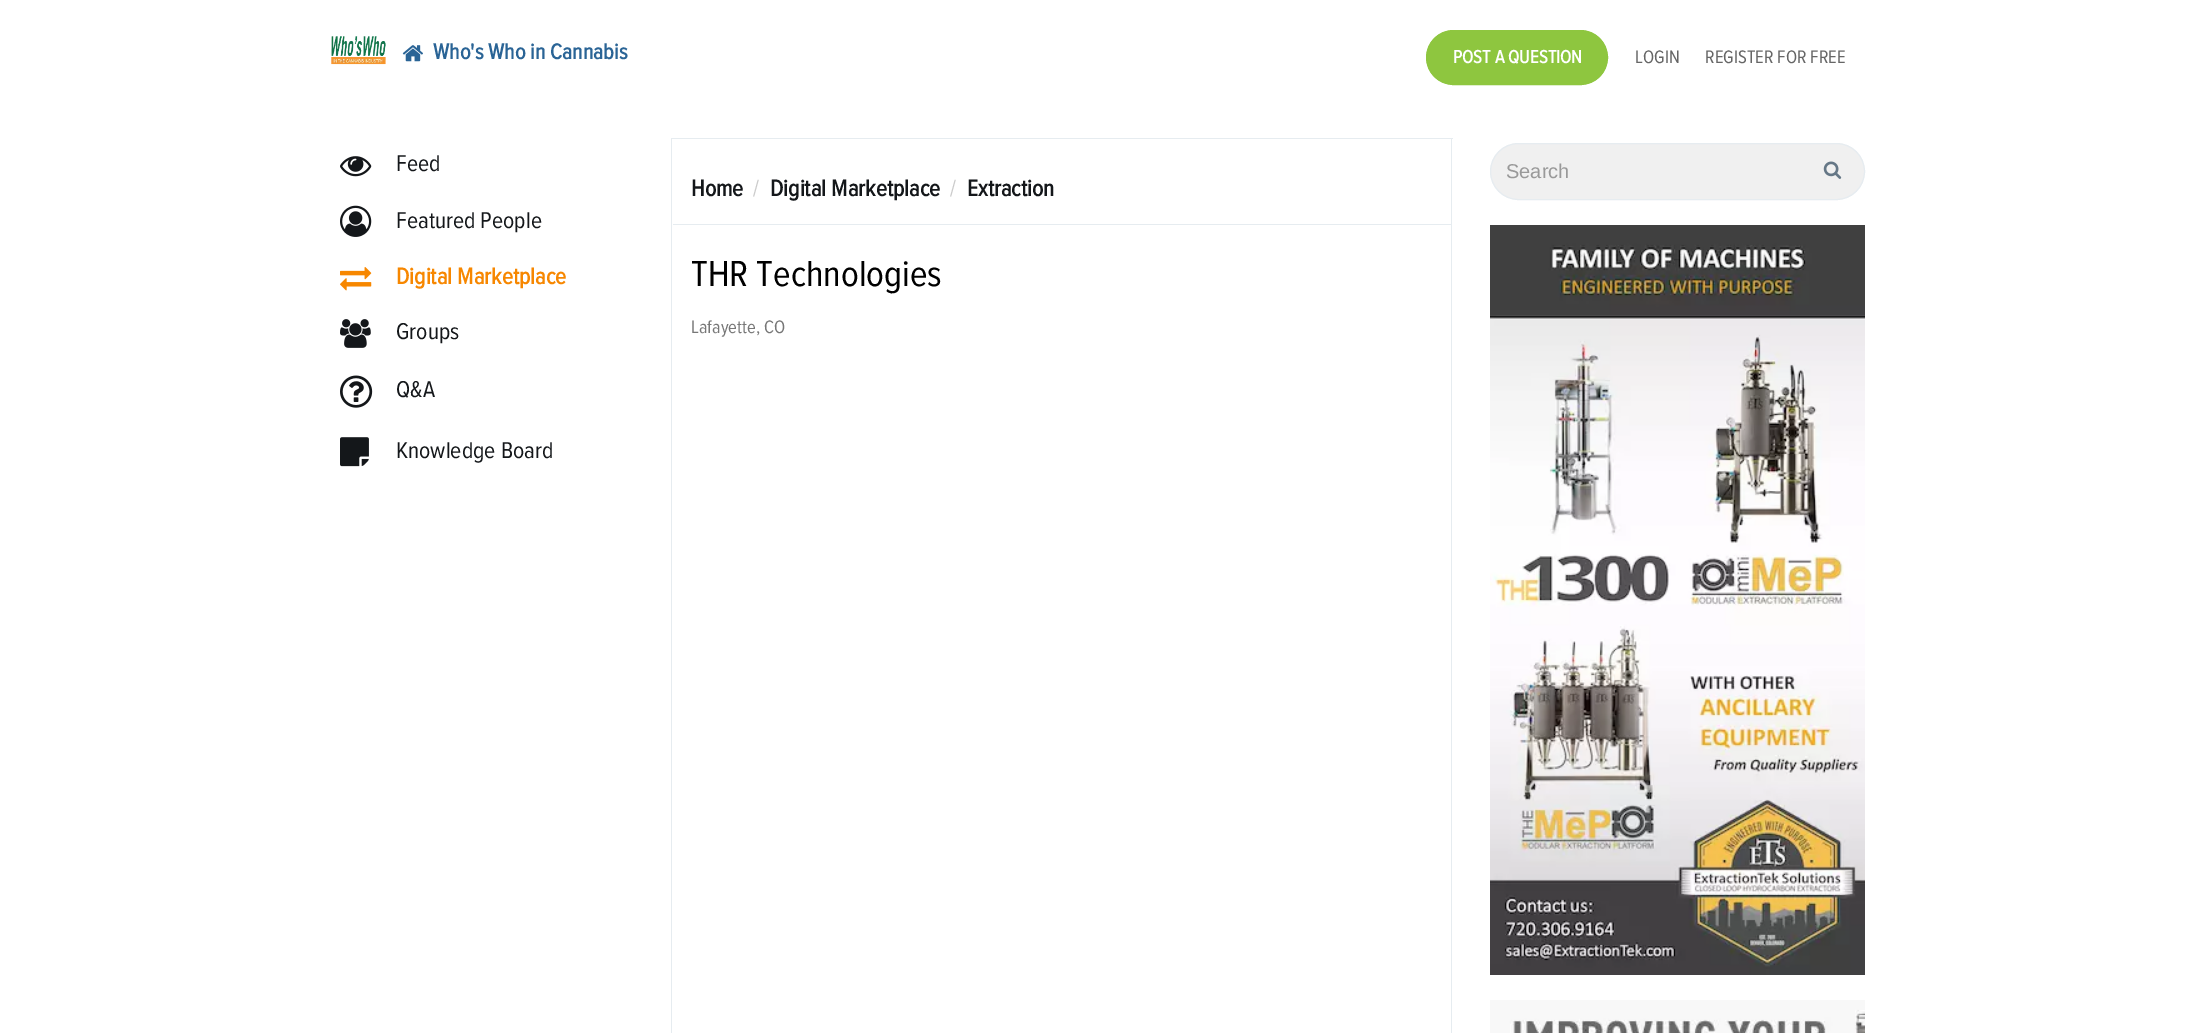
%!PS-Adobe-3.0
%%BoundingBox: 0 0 2185 1033
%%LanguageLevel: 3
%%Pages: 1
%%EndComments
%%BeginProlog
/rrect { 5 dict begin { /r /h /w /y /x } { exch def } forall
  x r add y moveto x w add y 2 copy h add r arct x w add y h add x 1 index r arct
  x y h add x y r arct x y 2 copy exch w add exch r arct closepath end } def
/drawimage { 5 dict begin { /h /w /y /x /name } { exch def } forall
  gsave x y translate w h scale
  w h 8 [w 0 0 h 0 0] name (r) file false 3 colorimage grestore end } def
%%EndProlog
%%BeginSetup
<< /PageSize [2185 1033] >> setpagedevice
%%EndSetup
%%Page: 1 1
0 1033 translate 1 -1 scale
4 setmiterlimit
1 setgray
0 0 2185 1033 rectfill
(images/1.raw) 331 36 55 29 drawimage
(images/2.raw) 402 45 21 17 drawimage
0.557 0.776 0.247 setrgbcolor
1426.5 30.5 181 54 27 rrect gsave fill grestore
stroke
(images/3.raw) 340 156 32 21 drawimage
(images/4.raw) 340 205 32 32 drawimage
(images/5.raw) 340 267 32 24 drawimage
(images/6.raw) 340 319 31 29 drawimage
(images/7.raw) 340 375 33 33 drawimage
(images/8.raw) 340 437 29 30 drawimage
0.941 setgray
1490.5 143.5 374 56 28 rrect gsave fill grestore
0.902 0.925 0.941 setrgbcolor
stroke
(images/9.raw) 1823 161 19 18 drawimage
(images/10.raw) 1490 225 375 750 drawimage
(images/11.raw) 1490 1000 375 33 drawimage
671 138 782 1 rectfill
1451 138 1 895 rectfill
671 138 1 895 rectfill
673 224 778 1 rectfill
/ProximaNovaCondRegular-Bold [22.5 0 0 -22.5 0 0] selectfont
0.165 0.392 0.588 setrgbcolor
433 59 moveto (Who's Who in Cannabis) show
/ProximaNovaCondRegular-Bold [18.75 0 0 -18.75 0 0] selectfont
1 setgray
1453 63 moveto (POST A QUESTION) show
/ProximaNovaCondRegular-Regular [18.75 0 0 -18.75 0 0] selectfont
0.4 setgray
1635 63 moveto (LOGIN) show
1705 63 moveto (REGISTER FOR FREE) show
/ProximaNovaCondRegular-Regular [23.75 0 0 -23.75 0 0] selectfont
0.078 0.09 0.102 setrgbcolor
396 171 moveto (Feed) show
396 228 moveto (Featured People) show
/ProximaNovaCondRegular-Bold [23.75 0 0 -23.75 0 0] selectfont
0.969 0.529 0 setrgbcolor
396 284 moveto (Digital Marketplace) show
/ProximaNovaCondRegular-Regular [23.75 0 0 -23.75 0 0] selectfont
0.078 0.09 0.102 setrgbcolor
396 339 moveto (Groups) show
396 397 moveto (Q&A) show
396 458 moveto (Knowledge Board) show
/LiberationSans-Regular [20 0 0 -20 0 0] selectfont
0.6 setgray
1506 178 moveto (Search) show
/ProximaNovaCondRegular-Bold [23.75 0 0 -23.75 0 0] selectfont
0.078 0.09 0.102 setrgbcolor
691 196 moveto (Home) show
/ProximaNovaCondRegular-Regular [23.75 0 0 -23.75 0 0] selectfont
0.8 setgray
753 196 moveto (/) show
/ProximaNovaCondRegular-Bold [23.75 0 0 -23.75 0 0] selectfont
0.078 0.09 0.102 setrgbcolor
770 196 moveto (Digital Marketplace) show
/ProximaNovaCondRegular-Regular [23.75 0 0 -23.75 0 0] selectfont
0.8 setgray
950 196 moveto (/) show
/ProximaNovaCondRegular-Bold [23.75 0 0 -23.75 0 0] selectfont
0.078 0.09 0.102 setrgbcolor
967 196 moveto (Extraction) show
/ProximaNovaCondRegular-Regular [37.5 0 0 -37.5 0 0] selectfont
0 setgray
691 286 moveto (THR Technologies) show
/ProximaNovaCondRegular-Regular [18.75 0 0 -18.75 0 0] selectfont
0.467 setgray
691 333 moveto (Lafayette, CO) show
showpage
%%EOF
